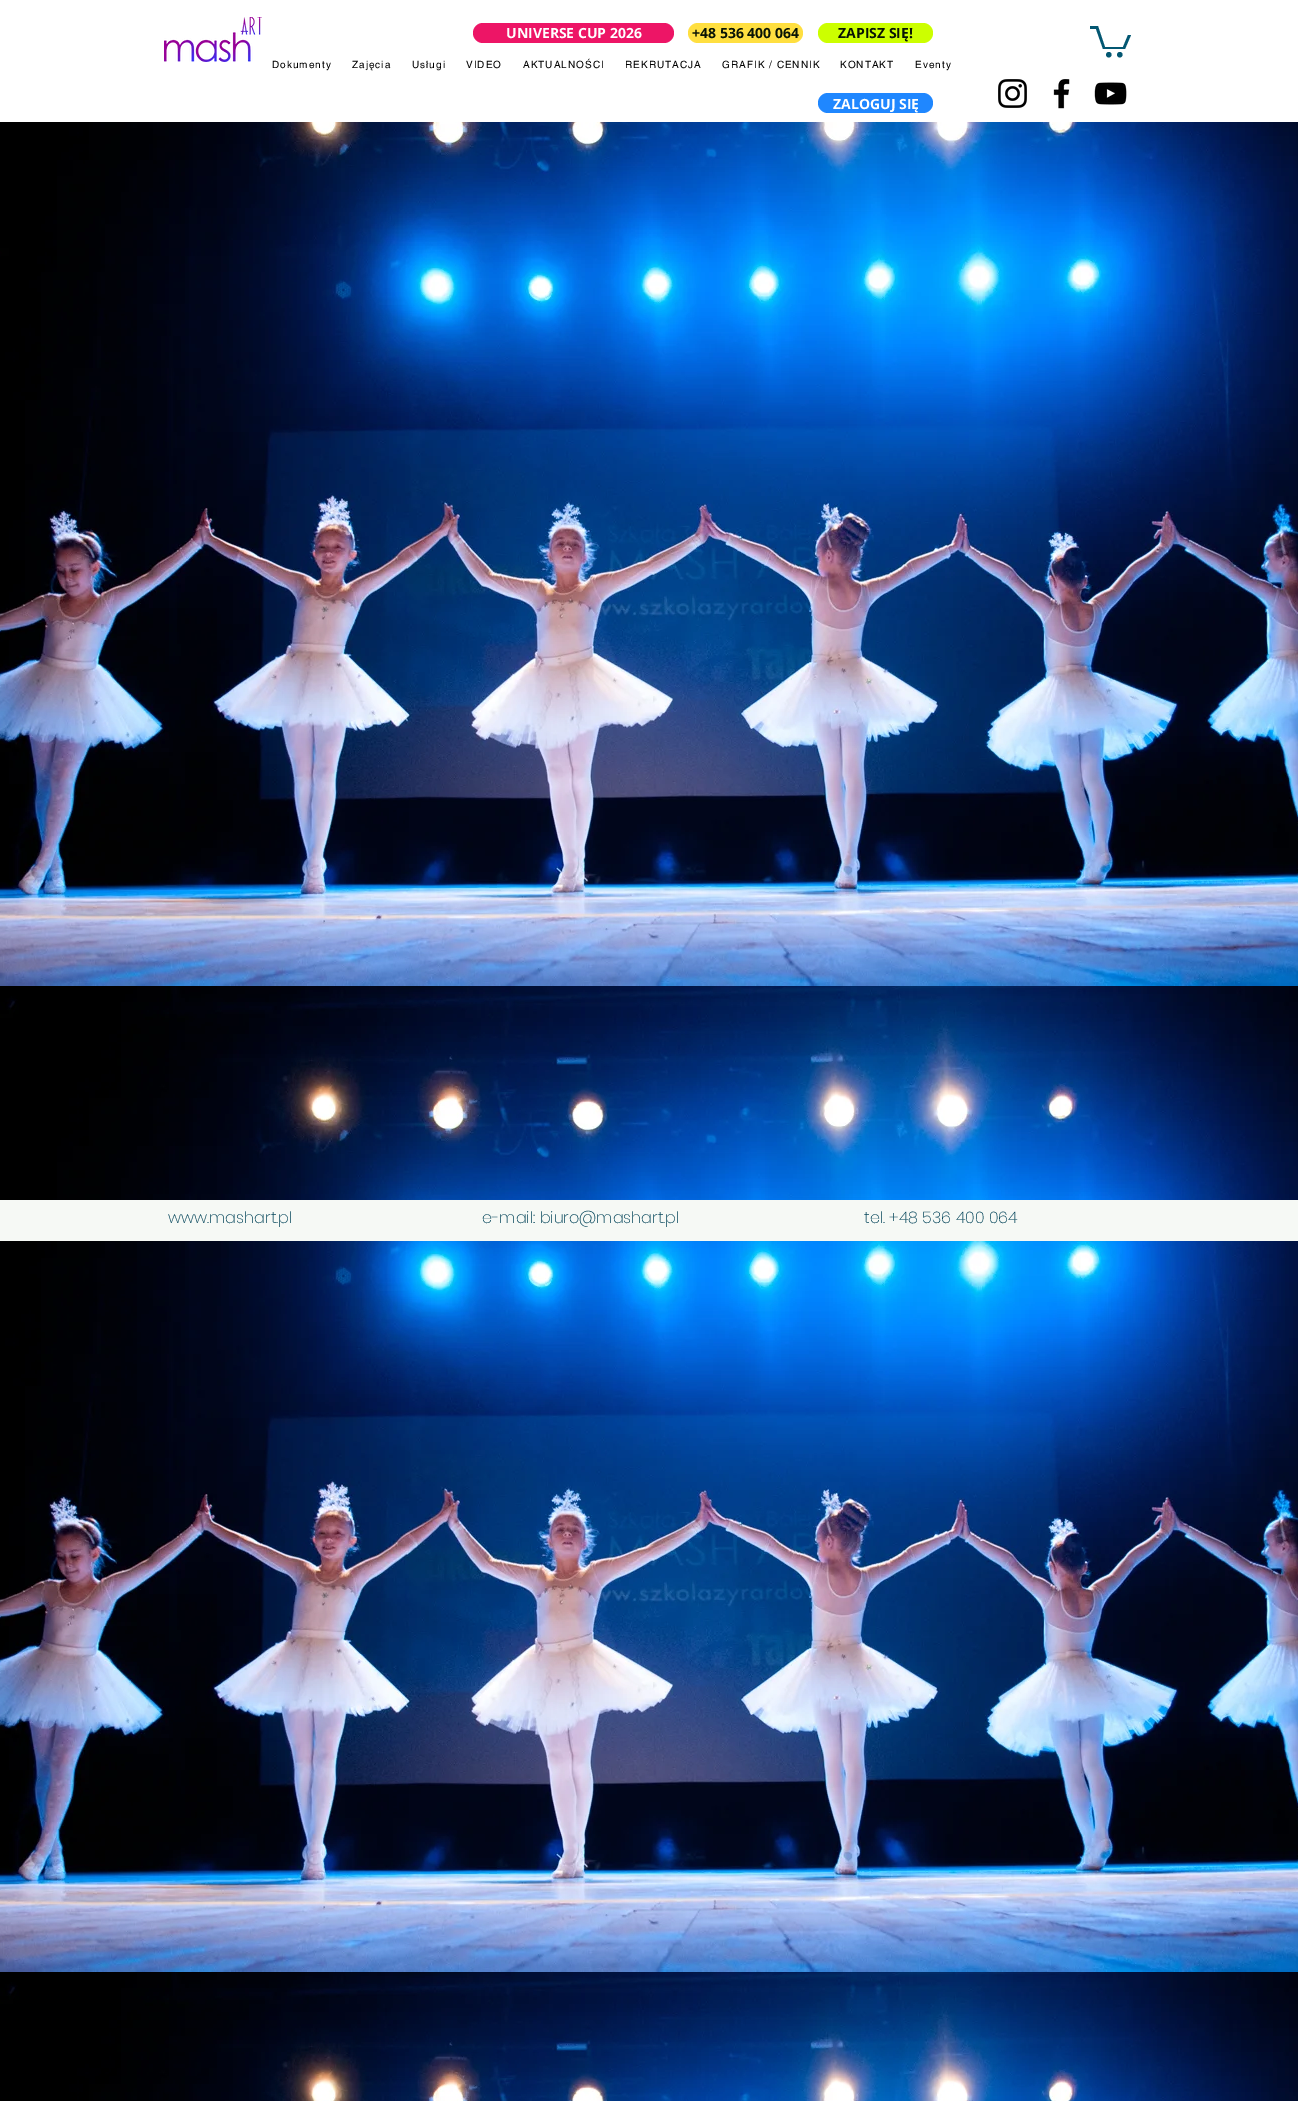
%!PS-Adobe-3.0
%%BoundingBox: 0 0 1298 2101
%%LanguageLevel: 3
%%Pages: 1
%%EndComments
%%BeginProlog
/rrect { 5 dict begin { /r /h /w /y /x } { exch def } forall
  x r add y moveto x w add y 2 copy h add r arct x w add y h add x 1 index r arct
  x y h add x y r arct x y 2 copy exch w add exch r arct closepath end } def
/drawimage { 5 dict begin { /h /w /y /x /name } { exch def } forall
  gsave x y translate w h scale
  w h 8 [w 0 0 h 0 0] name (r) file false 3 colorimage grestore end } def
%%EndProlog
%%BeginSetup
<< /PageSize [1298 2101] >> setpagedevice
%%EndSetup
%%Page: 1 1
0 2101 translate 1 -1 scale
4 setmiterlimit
1 setgray
0 0 1298 2101 rectfill
(images/1.raw) 164 17 98 45 drawimage
0.929 0.082 0.4 setrgbcolor
473 23 201 20 10 rrect fill
1 0.875 0.251 setrgbcolor
688 23 115 20 10 rrect fill
0.8 1 0 setrgbcolor
818 23 115 20 10 rrect fill
0.012 0.341 0.447 setrgbcolor
newpath 1131 35 moveto 1125 49 lineto 1103 49 lineto 1096 29 lineto 1090 29 lineto 1090 26 lineto 1098 26 lineto 1105 47 lineto 1123 47 lineto 1128 35 lineto fill
newpath 1119.8 54.7 2.7 0 360 arc closepath fill
newpath 1108.8 54.7 2.7 0 360 arc closepath fill
0.122 0.529 1 setrgbcolor
818 93 115 20 10 rrect fill
(images/2.raw) 998 79 29 29 drawimage
(images/3.raw) 1053 79 17 30 drawimage
(images/4.raw) 1094 82 33 23 drawimage
(images/5.raw) 0 122 1298 1979 drawimage
0.965 0.976 0.961 setrgbcolor
0 1200 1298 41 rectfill
/OpenSans-Bold [14 0 0 -14 0 0] selectfont
1 setgray
506 38 moveto (UNIVERSE CUP 2026) show
0.035 0.078 0.02 setrgbcolor
692 38 moveto (+48 536 400 064) show
838 38 moveto (ZAPISZ SIĘ!) show
/helvetica-Regular [10 0 0 -10 0 0] selectfont
0 setgray
272 68 moveto 1 0 (Dokumenty) ashow
352 68 moveto 1 0 (Zajęcia) ashow
412 68 moveto 1 0 (Usługi) ashow
466 68 moveto 1 0 (VIDEO) ashow
523 68 moveto 1 0 (AKTUALNOŚCI) ashow
625 68 moveto 1 0 (REKRUTACJA) ashow
722 68 moveto 1 0 (GRAFIK / CENNIK) ashow
840 68 moveto 1 0 (KONTAKT) ashow
915 68 moveto 1 0 (Eventy) ashow
/OpenSans-Bold [14 0 0 -14 0 0] selectfont
1 setgray
833 109 moveto (ZALOGUJ SIĘ) show
/Poppins-ExtraLight [16 0 0 -16 0 0] selectfont
0.012 0.267 0.349 setrgbcolor
168 1223 moveto (www.mashart.pl) show
482 1223 moveto (e-mail: biuro@mashart.pl) show
864 1223 moveto (tel. +48 536 400 064) show
showpage
%%EOF
